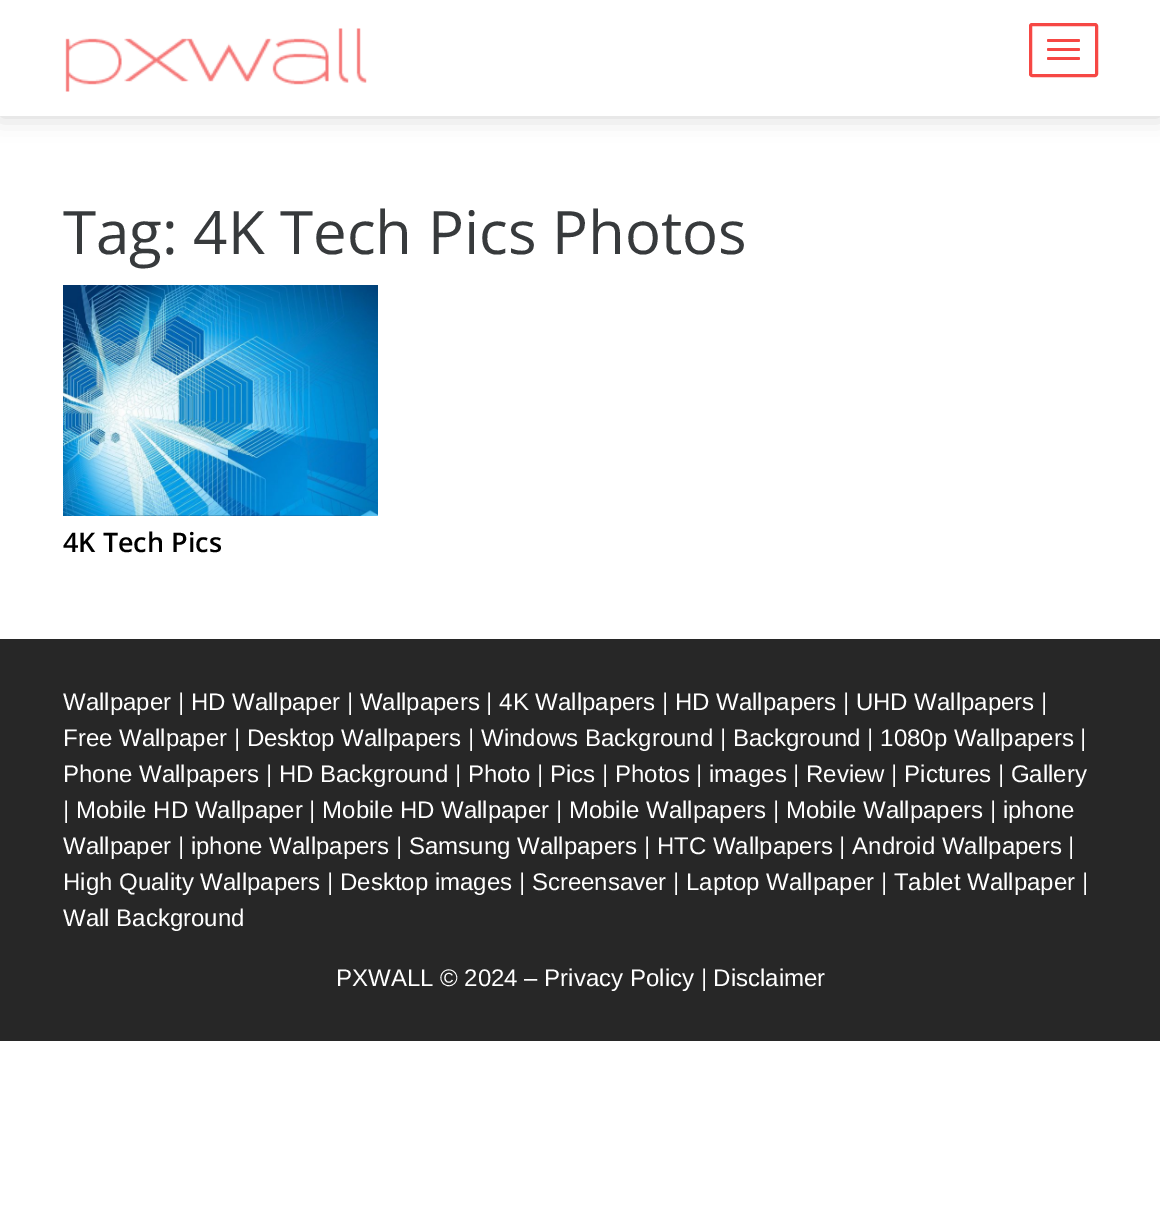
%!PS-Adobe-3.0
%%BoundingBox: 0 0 1160 1205
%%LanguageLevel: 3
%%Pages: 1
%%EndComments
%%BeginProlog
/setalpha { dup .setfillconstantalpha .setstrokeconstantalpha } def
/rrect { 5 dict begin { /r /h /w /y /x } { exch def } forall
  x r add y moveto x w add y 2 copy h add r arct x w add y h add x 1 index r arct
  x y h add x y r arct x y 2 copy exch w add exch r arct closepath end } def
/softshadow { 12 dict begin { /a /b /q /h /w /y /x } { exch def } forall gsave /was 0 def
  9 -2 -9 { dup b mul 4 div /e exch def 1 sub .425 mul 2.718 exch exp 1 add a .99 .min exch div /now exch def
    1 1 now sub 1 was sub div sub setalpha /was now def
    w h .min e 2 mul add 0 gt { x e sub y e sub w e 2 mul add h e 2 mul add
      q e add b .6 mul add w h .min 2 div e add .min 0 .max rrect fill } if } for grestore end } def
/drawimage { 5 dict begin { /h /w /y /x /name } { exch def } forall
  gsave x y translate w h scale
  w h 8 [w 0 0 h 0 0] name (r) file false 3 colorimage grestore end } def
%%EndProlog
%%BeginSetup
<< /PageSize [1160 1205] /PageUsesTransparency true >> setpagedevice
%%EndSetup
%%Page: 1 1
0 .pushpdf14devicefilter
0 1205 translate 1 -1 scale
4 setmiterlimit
1 setgray
0 0 1160 1205 rectfill
0 setgray
0 0 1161 116 0 12 0.18 softshadow
1 setgray
0 0 1160 116 rectfill
(images/1.raw) 65 28 302 64 drawimage
0.965 0.278 0.267 setrgbcolor
3 setlinewidth
1030.5 24.5 66 51 1.5 rrect stroke
1047 39 33 3 1.5 rrect fill
1047 48 33 3 1.5 rrect fill
1047 57 33 3 1.5 rrect fill
(images/2.raw) 63 285 315 231 drawimage
0.153 setgray
0 639 1160 402 rectfill
/OpenSans-Regular [60 0 0 -60 0 0] selectfont
0.216 0.227 0.235 setrgbcolor
63 254 moveto (Tag: 4K Tech Pics Photos) show
/OpenSans-SemiBold [27 0 0 -27 0 0] selectfont
0 setgray
63 552 moveto (4K Tech Pics) show
/LiberationSans-Regular [24 0 0 -24 0 0] selectfont
1 setgray
63 710 moveto (Wallpaper | HD Wallpaper | Wallpapers | 4K Wallpapers | HD Wallpapers | UHD Wallpapers |) show
63 746 moveto (Free Wallpaper | Desktop Wallpapers | Windows Background | Background | 1080p Wallpapers |) show
63 782 moveto (Phone Wallpapers | HD Background | Photo | Pics | Photos | images | Review | Pictures | Gallery) show
63 818 moveto (| Mobile HD Wallpaper | Mobile HD Wallpaper | Mobile Wallpapers | Mobile Wallpapers | iphone) show
63 854 moveto (Wallpaper | iphone Wallpapers | Samsung Wallpapers | HTC Wallpapers | Android Wallpapers |) show
63 890 moveto (High Quality Wallpapers | Desktop images | Screensaver | Laptop Wallpaper | Tablet Wallpaper |) show
63 926 moveto (Wall Background) show
336 986 moveto (PXWALL © 2024 – Privacy Policy | Disclaimer) show
.poppdf14devicefilter showpage
%%EOF
